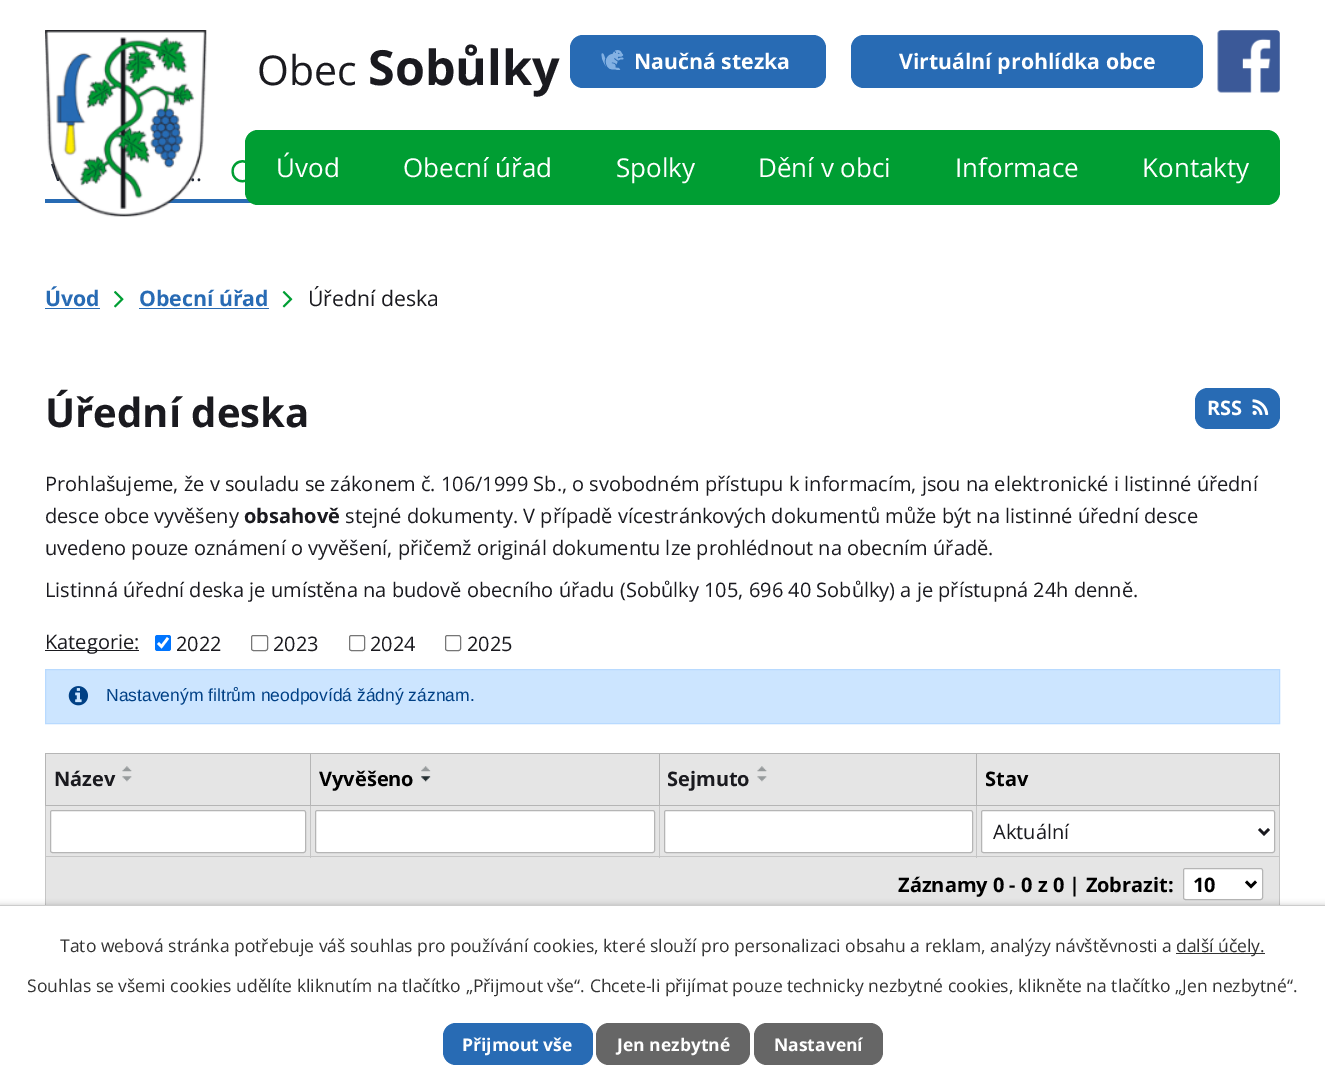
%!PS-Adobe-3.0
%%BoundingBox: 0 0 1325 1087
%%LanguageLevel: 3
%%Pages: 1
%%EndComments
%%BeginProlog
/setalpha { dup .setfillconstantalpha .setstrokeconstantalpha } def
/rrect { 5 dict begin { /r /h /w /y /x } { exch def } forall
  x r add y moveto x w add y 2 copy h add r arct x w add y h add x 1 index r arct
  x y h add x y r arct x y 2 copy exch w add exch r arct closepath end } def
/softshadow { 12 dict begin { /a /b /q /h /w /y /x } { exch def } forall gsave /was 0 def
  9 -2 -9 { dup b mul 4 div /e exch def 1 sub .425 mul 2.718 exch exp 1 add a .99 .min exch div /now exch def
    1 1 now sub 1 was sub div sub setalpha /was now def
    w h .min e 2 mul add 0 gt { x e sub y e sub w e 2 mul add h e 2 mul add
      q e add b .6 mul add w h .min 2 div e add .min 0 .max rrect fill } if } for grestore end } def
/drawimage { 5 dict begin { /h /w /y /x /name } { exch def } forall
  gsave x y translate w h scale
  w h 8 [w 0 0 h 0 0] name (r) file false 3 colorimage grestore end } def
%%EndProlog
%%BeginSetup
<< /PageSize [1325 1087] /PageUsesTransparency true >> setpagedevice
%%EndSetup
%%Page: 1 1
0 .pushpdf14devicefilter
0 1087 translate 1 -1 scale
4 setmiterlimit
1 setgray
0 0 1325 1087 rectfill
0.157 0.42 0.706 setrgbcolor
570 35 256 53 13 rrect fill
(images/2.raw) 601 50 23 20 drawimage
851 35 352 53 13 rrect fill
(images/3.raw) 1217 30 63 63 drawimage
45 199 214 4 rectfill
(images/4.raw) 231 160 14 23 drawimage
0 0.62 0.2 setrgbcolor
245 130 1035 75 13 rrect fill
0.157 0.42 0.706 setrgbcolor
45 308 55 1 rectfill
(images/5.raw) 114 291 10 17 drawimage
139 308 130 1 rectfill
(images/6.raw) 282 291 11 17 drawimage
1195 388 85 41 13 rrect fill
(images/7.raw) 1252 399 17 16 drawimage
0.102 0.102 0.122 setrgbcolor
45 650 94 1 rectfill
0 0.459 1 setrgbcolor
155 635 16 16 2.5 rrect fill
1 setgray
2.6 setlinewidth
newpath 158 643 moveto 161.5 646.5 lineto 168 638 lineto stroke
0.463 setgray
1 setlinewidth
251.5 635.5 16 15 2 rrect stroke
349.5 635.5 15 15 2 rrect stroke
445.5 635.5 15 15 2 rrect stroke
0.8 0.898 1 setrgbcolor
newpath 45.5 669.5 moveto 1279.5 669.5 lineto 1279.5 723.5 lineto 45.5 723.5 lineto closepath gsave fill grestore
0.722 0.855 1 setrgbcolor
stroke
(images/8.raw) 68 686 20 20 drawimage
0.898 setgray
46 754 264 51 rectfill
0.71 setgray
976 753 304 1 rectfill
0.898 setgray
660 754 619 51 rectfill
46 806 1233 99 rectfill
0.773 setgray
45 856 1235 1 rectfill
1279 805 1 106 rectfill
0.71 setgray
1279 753 1 53 rectfill
0.773 setgray
976 805 1 53 rectfill
0.71 setgray
976 805 304 1 rectfill
976 753 1 53 rectfill
659 753 319 1 rectfill
0.773 setgray
659 805 1 53 rectfill
0.71 setgray
659 805 319 1 rectfill
659 753 1 53 rectfill
310 753 350 1 rectfill
0.773 setgray
310 805 1 53 rectfill
0.71 setgray
310 805 350 1 rectfill
310 753 1 53 rectfill
45 753 266 1 rectfill
0.773 setgray
45 805 1 106 rectfill
0.71 setgray
45 805 266 1 rectfill
45 753 1 53 rectfill
(images/9.raw) 122 766 10 6 drawimage
(images/10.raw) 122 776 10 6 drawimage
0.898 setgray
311 754 348 51 rectfill
(images/11.raw) 421 766 10 6 drawimage
(images/12.raw) 421 776 10 6 drawimage
(images/9.raw) 757 766 10 6 drawimage
(images/10.raw) 757 776 10 6 drawimage
1 setgray
50.5 810.5 255 42 2 rrect gsave fill grestore
0.71 setgray
stroke
1 setgray
315.5 810.5 339 42 2 rrect gsave fill grestore
0.71 setgray
stroke
1 setgray
664.5 810.5 308 42 2 rrect gsave fill grestore
0.71 setgray
stroke
1 setgray
981.5 810.5 293 42 2 rrect gsave fill grestore
0.71 setgray
stroke
0.102 0.102 0.122 setrgbcolor
2.5 setlinewidth
newpath 1259 829 moveto 1264 834 lineto 1269 829 lineto stroke
1 setgray
1183.5 868.5 79 31 2 rrect gsave fill grestore
0.71 setgray
1 setlinewidth
stroke
0 setgray
2.5 setlinewidth
newpath 1246 881.5 moveto 1251 886.5 lineto 1256 881.5 lineto stroke
0 905 1325 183 0 3 0.2 softshadow
1 setgray
0 906 1325 181 rectfill
0.8 setgray
0 905 1325 1 rectfill
0.2 setgray
1176 953 89 1 rectfill
0.157 0.42 0.706 setrgbcolor
443 1023 150 42 13 rrect fill
0.4 setgray
596 1023 154 42 13 rrect fill
754 1023 129 42 13 rrect fill
/OpenSans-Regular [41 0 0 -41 0 0] selectfont
0.102 0.102 0.122 setrgbcolor
257 85 moveto (Obec) show
/OpenSans-Bold [48.5 0 0 -48.5 0 0] selectfont
368 85 moveto (Sobůlky) show
/OpenSans-Bold [21.25 0 0 -21.25 0 0] selectfont
1 setgray
634 69 moveto (Naučná stezka) show
899 69 moveto (Virtuální prohlídka obce) show
/OpenSans-Regular [24 0 0 -24 0 0] selectfont
0.125 0.153 0.204 setrgbcolor
190 181 moveto (..) show
(images/1.raw) 45 30 162 187 drawimage
/OpenSans-Regular [26 0 0 -26 0 0] selectfont
1 setgray
276 177 moveto (Úvod) show
403 177 moveto (Obecní úřad) show
616 177 moveto (Spolky) show
758 177 moveto (Dění v obci) show
955 177 moveto (Informace) show
1142 177 moveto (Kontakty) show
/OpenSans-Bold [21.25 0 0 -21.25 0 0] selectfont
0.157 0.42 0.706 setrgbcolor
45 306 moveto (Úvod) show
139 306 moveto (Obecní úřad) show
/OpenSans-Regular [21.25 0 0 -21.25 0 0] selectfont
0.102 0.102 0.122 setrgbcolor
308 306 moveto (Úřední deska) show
/OpenSans-Bold [40 0 0 -40 0 0] selectfont
45 427 moveto (Úřední deska) show
/OpenSans-Bold [20 0 0 -20 0 0] selectfont
1 setgray
1207 415 moveto (RSS) show
/OpenSans-Regular [20 0 0 -20 0 0] selectfont
0.102 0.102 0.122 setrgbcolor
45 491 moveto (Prohlašujeme, že v souladu se zákonem č. 106/1999 Sb., o svobodném přístupu k informacím, jsou na elektronické i listinné úřední) show
45 523 moveto (desce obce vyvěšeny) show
/OpenSans-Bold [20 0 0 -20 0 0] selectfont
244 523 moveto (obsahově) show
/OpenSans-Regular [20 0 0 -20 0 0] selectfont
345 523 moveto (stejné dokumenty. V případě vícestránkových dokumentů může být na listinné úřední desce) show
45 555 moveto (uvedeno pouze oznámení o vyvěšení, přičemž originál dokumentu lze prohlédnout na obecním úřadě.) show
45 597 moveto (Listinná úřední deska je umístěna na budově obecního úřadu \(Sobůlky 105, 696 40 Sobůlky\) a je přístupná 24h denně.) show
45 649 moveto (Kategorie:) show
176 651 moveto (2022) show
273 651 moveto (2023) show
370 651 moveto (2024) show
467 651 moveto (2025) show
/LiberationSans-Regular [17.5 0 0 -17.5 0 0] selectfont
0 0.251 0.522 setrgbcolor
106 701 moveto (Nastaveným filtrům neodpovídá žádný záznam.) show
/OpenSans-Bold [20 0 0 -20 0 0] selectfont
0.102 0.102 0.122 setrgbcolor
54 786 moveto (Název) show
0 setgray
319 786 moveto (Vyvěšeno) show
0.102 0.102 0.122 setrgbcolor
667 786 moveto (Sejmuto) show
0 setgray
985 786 moveto (Stav) show
/OpenSans-Regular [20 0 0 -20 0 0] selectfont
0.102 0.102 0.122 setrgbcolor
993 839 moveto (Aktuální) show
/OpenSans-Bold [20 0 0 -20 0 0] selectfont
0 setgray
898 892 moveto (Záznamy 0 - 0 z 0 | Zobrazit:) show
1193 892 moveto (10) show
/OpenSans-Regular [17.5 0 0 -17.5 0 0] selectfont
0.2 setgray
60 952 moveto (Tato webová stránka potřebuje váš souhlas pro používání cookies, které slouží pro personalizaci obsahu a reklam, analýzy návštěvnosti a) show
1176 952 moveto (další účely.) show
27 992 moveto (Souhlas se všemi cookies udělíte kliknutím na tlačítko „Přijmout vše“. Chcete-li přijímat pouze technicky nezbytné cookies, klikněte na tlačítko „Jen nezbytné“.) show
/OpenSans-Bold [17.5 0 0 -17.5 0 0] selectfont
1 setgray
462 1051 moveto (Přijmout vše) show
617 1051 moveto (Jen nezbytné) show
774 1051 moveto (Nastavení) show
.poppdf14devicefilter showpage
%%EOF
